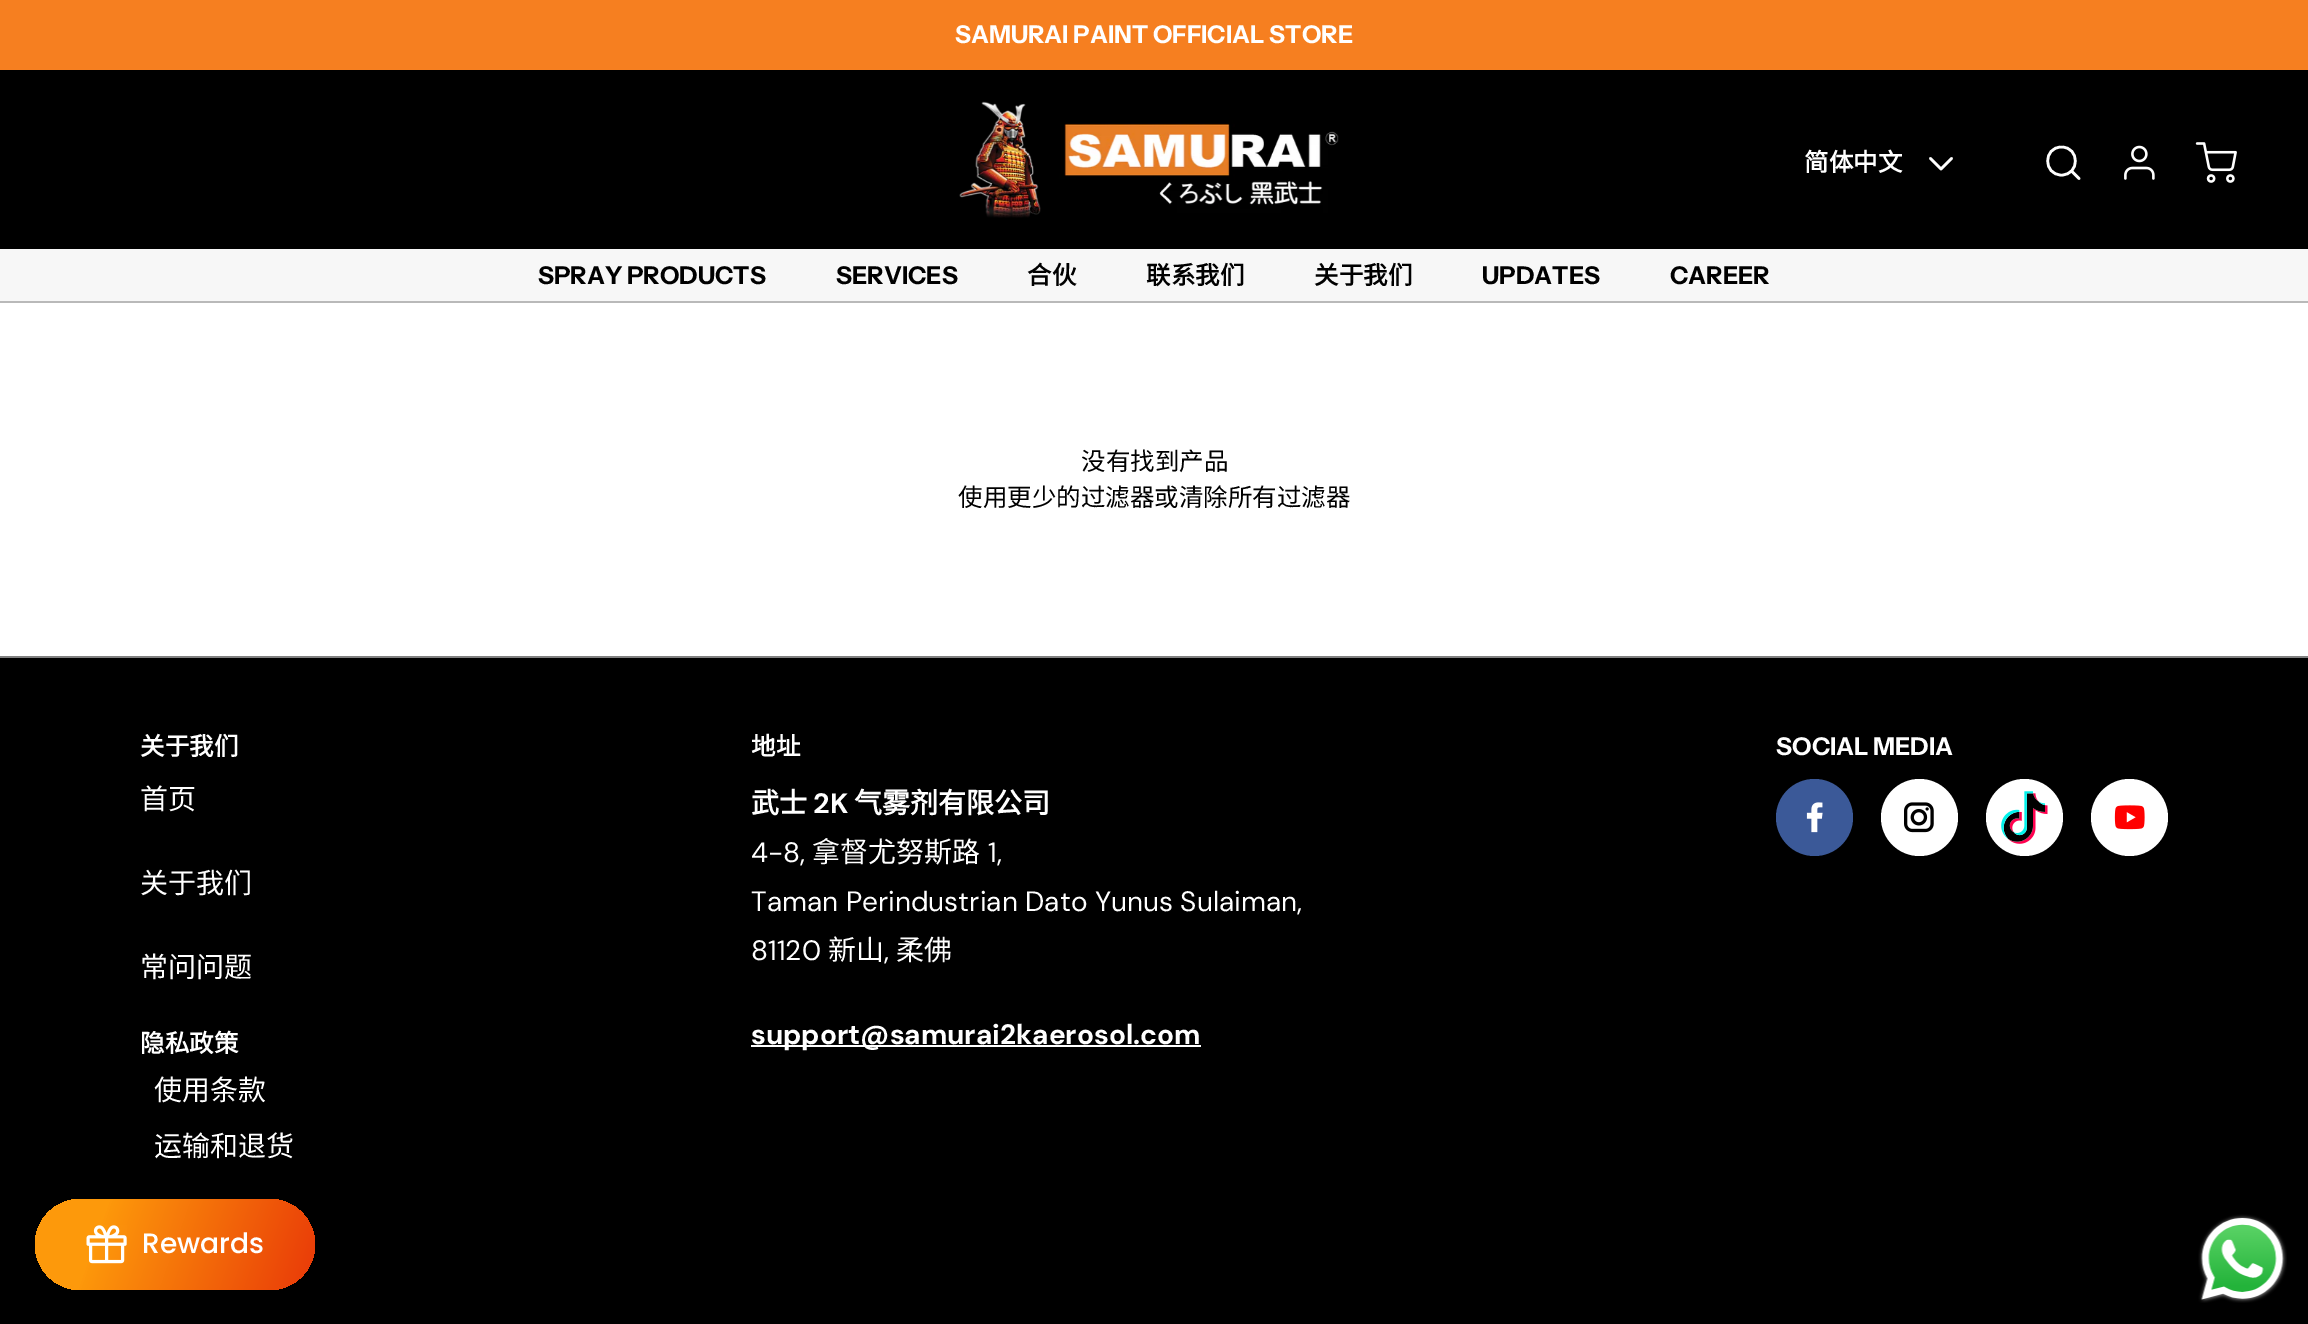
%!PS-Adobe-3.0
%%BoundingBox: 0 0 2308 1324
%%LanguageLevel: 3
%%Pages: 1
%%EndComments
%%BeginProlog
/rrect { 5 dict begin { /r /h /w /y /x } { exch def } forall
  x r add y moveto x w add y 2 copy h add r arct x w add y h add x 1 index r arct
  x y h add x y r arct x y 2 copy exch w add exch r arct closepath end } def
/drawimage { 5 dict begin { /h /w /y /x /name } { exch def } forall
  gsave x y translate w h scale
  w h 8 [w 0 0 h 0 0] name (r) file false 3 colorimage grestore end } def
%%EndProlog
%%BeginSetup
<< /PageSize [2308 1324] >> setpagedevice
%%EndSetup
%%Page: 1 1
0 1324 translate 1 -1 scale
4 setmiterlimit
1 setgray
0 0 2308 1324 rectfill
0.965 0.498 0.125 setrgbcolor
0 0 2308 70 rectfill
0 setgray
0 70 2308 179 rectfill
(images/1.raw) 959 101 380 117 drawimage
1 setgray
2.6 setlinewidth
1 setlinecap
1 setlinejoin
newpath 1951.5 158.5 moveto 1941 169 lineto 1930.5 158.5 lineto stroke
newpath 2061.5 175 moveto 2080 175 2080 147 2061.5 147 curveto 2043 147 2043 175 2061.5 175 curveto closepath 2079 178.5 moveto 2071.5 171 lineto stroke
(images/2.raw) 2124 145 31 35 drawimage
(images/3.raw) 2195 142 42 41 drawimage
0.969 setgray
0 249 2308 52 rectfill
0.725 setgray
0 301 2308 2 rectfill
0 setgray
0 658 2308 666 rectfill
0.502 setgray
0 656 2308 2 rectfill
1 setgray
751 1045 450 2 rectfill
0.231 0.349 0.596 setrgbcolor
newpath 1814.5 817.5 38.5 0 360 arc closepath fill
(images/4.raw) 1806 802 17 31 drawimage
1 setgray
newpath 1919.5 817.5 38.5 0 360 arc closepath fill
(images/5.raw) 1904 802 30 31 drawimage
newpath 2024.5 817.5 38.5 0 360 arc closepath fill
(images/6.raw) 2001 791 47 53 drawimage
newpath 2129.5 817.5 38.5 0 360 arc closepath fill
(images/7.raw) 2114 805 31 25 drawimage
gsave 35 1199 280 91 45.5 rrect clip newpath
<< /ShadingType 2 /ColorSpace /DeviceRGB /Coords [36 1195 425 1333] /Extend [true true] /Function << /FunctionType 3 /Domain [0 1] /Functions [<< /FunctionType 2 /Domain [0 1] /C0 [0.992 0.6 0.043] /C1 [0.992 0.6 0.043] /N 1 >> << /FunctionType 2 /Domain [0 1] /C0 [0.992 0.6 0.043] /C1 [0.875 0.024 0.024] /N 1 >>] /Bounds [0.17] /Encode [0 1 0 1] >> >> shfill grestore
(images/8.raw) 86 1225 41 39 drawimage
(images/9.raw) 2198 1214 89 89 drawimage
/InstrumentSans-Bold [24.5 0 0 -24.5 0 0] selectfont
955 43 moveto (SAMURAI PAINT OFFICIAL STORE) show
/NotoSansCJKSC-Bold [24.5 0 0 -24.5 0 0] selectfont
1804 171 moveto (简体中文) show
/InstrumentSans-Bold [24.5 0 0 -24.5 0 0] selectfont
0 setgray
538 284 moveto (SPRAY PRODUCTS) show
836 284 moveto (SERVICES) show
/NotoSansCJKSC-Bold [24.5 0 0 -24.5 0 0] selectfont
1027 284 moveto (合伙) show
1146 284 moveto (联系我们) show
1314 284 moveto (关于我们) show
/InstrumentSans-Bold [24.5 0 0 -24.5 0 0] selectfont
1482 284 moveto (UPDATES) show
1670 284 moveto (CAREER) show
/NotoSansCJKSC-Regular [24.5 0 0 -24.5 0 0] selectfont
1081 470 moveto (没有找到产品) show
958 506 moveto (使用更少的过滤器或清除所有过滤器) show
/NotoSansCJKSC-Bold [24.5 0 0 -24.5 0 0] selectfont
1 setgray
140 755 moveto (关于我们) show
/NotoSansCJKSC-Regular [28 0 0 -28 0 0] selectfont
140 809 moveto (首页) show
140 893 moveto (关于我们) show
140 977 moveto (常问问题) show
/NotoSansCJKSC-Bold [24.5 0 0 -24.5 0 0] selectfont
140 1052 moveto (隐私政策) show
/NotoSansCJKSC-Regular [28 0 0 -28 0 0] selectfont
154 1100 moveto (使用条款) show
154 1156 moveto (运输和退货) show
/NotoSansCJKSC-Bold [24.5 0 0 -24.5 0 0] selectfont
751 755 moveto (地址) show
/NotoSansCJKSC-Bold [28 0 0 -28 0 0] selectfont
751 813 moveto (武士) show
/DMSans-Bold [28 0 0 -28 0 0] selectfont
813 813 moveto (2K) show
/NotoSansCJKSC-Bold [28 0 0 -28 0 0] selectfont
854 813 moveto (气雾剂有限公司) show
/DMSans-Regular [28 0 0 -28 0 0] selectfont
751 862 moveto (4-8,) show
/NotoSansCJKSC-Regular [28 0 0 -28 0 0] selectfont
812 862 moveto (拿督尤努斯路) show
/DMSans-Regular [28 0 0 -28 0 0] selectfont
988 862 moveto (1,) show
751 911 moveto (Taman Perindustrian Dato Yunus Sulaiman,) show
751 960 moveto (81120) show
/NotoSansCJKSC-Regular [28 0 0 -28 0 0] selectfont
828 960 moveto (新山) show
/DMSans-Regular [28 0 0 -28 0 0] selectfont
884 960 moveto (,) show
/NotoSansCJKSC-Regular [28 0 0 -28 0 0] selectfont
896 960 moveto (柔佛) show
/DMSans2-Bold [28 0 0 -28 0 0] selectfont
751 1044 moveto (support@samurai2kaerosol.com) show
/InstrumentSans-Bold [24.5 0 0 -24.5 0 0] selectfont
1776 755 moveto (SOCIAL MEDIA) show
/Poppins-Medium [28 0 0 -28 0 0] selectfont
142 1253 moveto (Rewards) show
showpage
%%EOF
